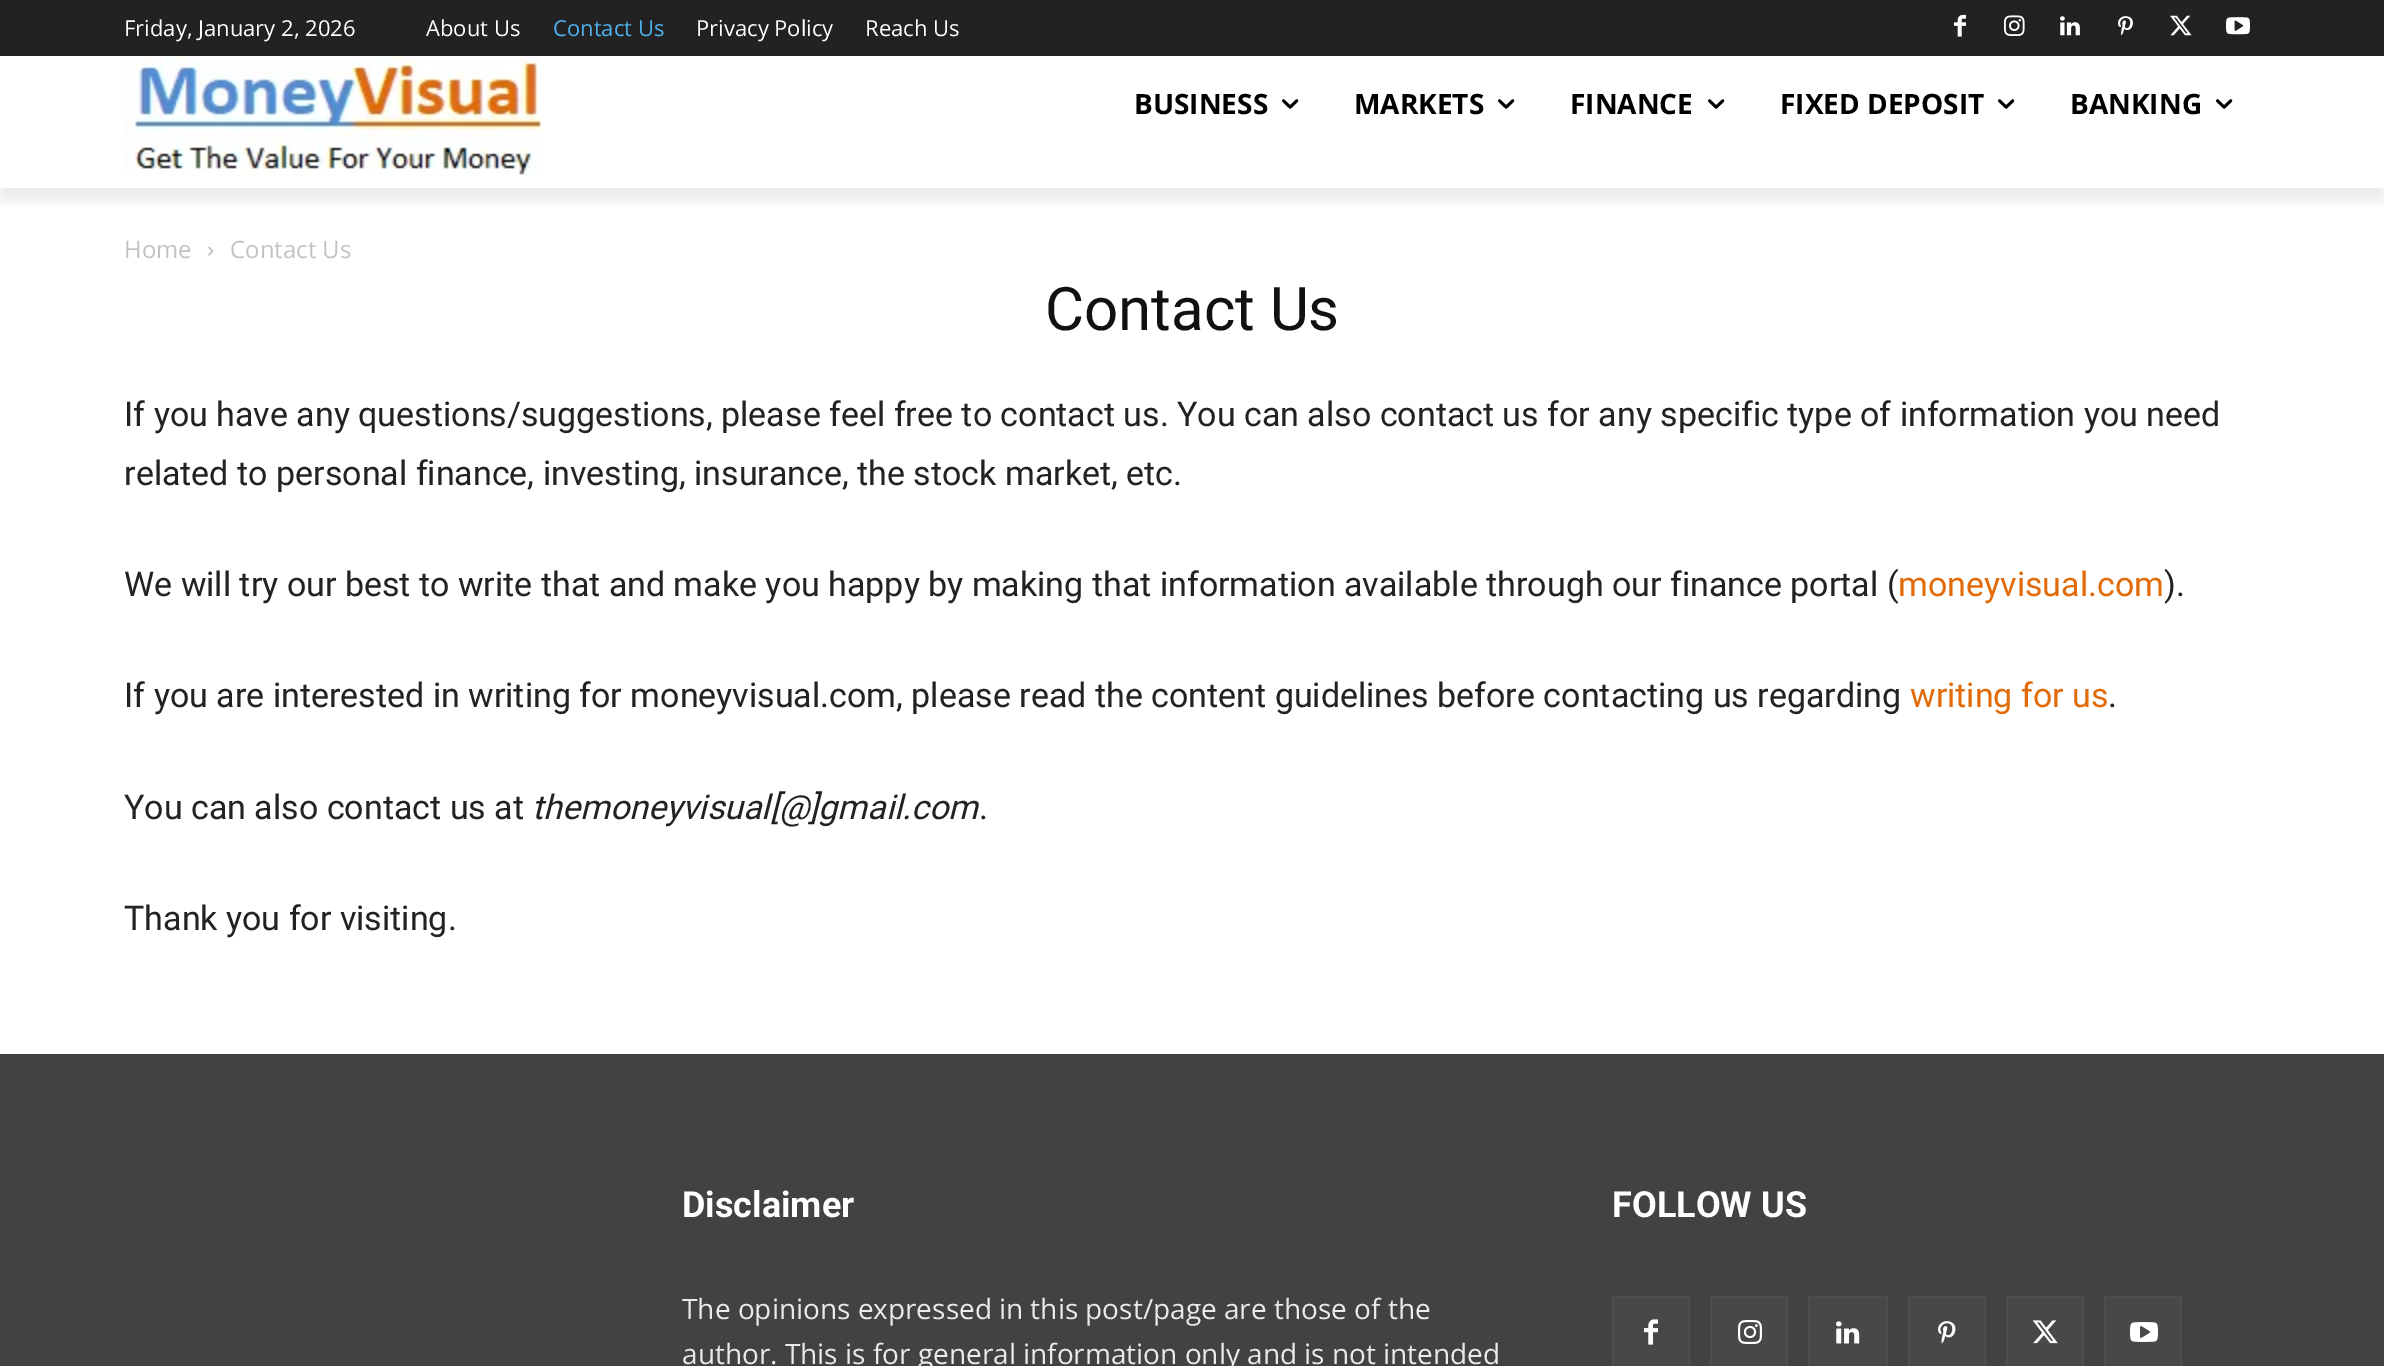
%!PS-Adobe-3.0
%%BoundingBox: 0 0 2384 1366
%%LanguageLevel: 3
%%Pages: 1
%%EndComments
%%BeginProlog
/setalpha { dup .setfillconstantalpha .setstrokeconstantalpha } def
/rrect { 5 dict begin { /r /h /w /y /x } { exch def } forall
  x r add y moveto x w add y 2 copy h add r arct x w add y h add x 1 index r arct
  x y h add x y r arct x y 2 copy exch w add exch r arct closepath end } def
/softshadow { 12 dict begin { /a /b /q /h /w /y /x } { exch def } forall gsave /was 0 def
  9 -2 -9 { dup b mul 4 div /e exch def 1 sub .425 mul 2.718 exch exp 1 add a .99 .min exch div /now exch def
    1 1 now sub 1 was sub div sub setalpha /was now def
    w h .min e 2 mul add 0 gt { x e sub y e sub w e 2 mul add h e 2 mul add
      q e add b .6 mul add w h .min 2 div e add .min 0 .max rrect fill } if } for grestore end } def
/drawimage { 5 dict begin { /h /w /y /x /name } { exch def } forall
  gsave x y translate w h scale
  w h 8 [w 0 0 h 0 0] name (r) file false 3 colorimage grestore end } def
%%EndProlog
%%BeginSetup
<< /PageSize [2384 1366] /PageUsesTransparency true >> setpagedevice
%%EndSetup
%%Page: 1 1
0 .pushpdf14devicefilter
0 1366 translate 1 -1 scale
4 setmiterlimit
1 setgray
0 0 2384 1366 rectfill
0.133 setgray
0 0 2384 56 rectfill
(images/1.raw) 1954 14 12 23 drawimage
(images/2.raw) 2004 15 21 21 drawimage
(images/3.raw) 2060 16 20 20 drawimage
(images/4.raw) 2118 16 15 20 drawimage
(images/5.raw) 2170 15 22 21 drawimage
(images/6.raw) 2226 17 24 18 drawimage
(images/7.raw) 124 56 419 120 drawimage
gsave
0 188 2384 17 rectclip
0 setgray
0 12 2384 188 0 8 0.08 softshadow
grestore
(images/8.raw) 1282 99 17 10 drawimage
(images/8.raw) 1498 99 17 10 drawimage
(images/8.raw) 1708 99 17 10 drawimage
(images/8.raw) 1998 99 17 10 drawimage
(images/8.raw) 2216 99 17 10 drawimage
(images/9.raw) 208 246 6 10 drawimage
0.259 setgray
0 1054 2384 312 rectfill
0.282 setgray
newpath 1613 1297 moveto 1689 1297 lineto 1689 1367 lineto 1613 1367 lineto closepath gsave fill grestore
0.302 setgray
2 setlinewidth
stroke
(images/10.raw) 1644 1319 14 26 drawimage
0.282 setgray
newpath 1711 1297 moveto 1787 1297 lineto 1787 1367 lineto 1711 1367 lineto closepath gsave fill grestore
0.302 setgray
stroke
(images/11.raw) 1738 1320 24 24 drawimage
0.282 setgray
newpath 1809 1297 moveto 1887 1297 lineto 1887 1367 lineto 1809 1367 lineto closepath gsave fill grestore
0.302 setgray
stroke
(images/12.raw) 1836 1321 24 23 drawimage
0.282 setgray
newpath 1909 1297 moveto 1985 1297 lineto 1985 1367 lineto 1909 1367 lineto closepath gsave fill grestore
0.302 setgray
stroke
(images/13.raw) 1938 1321 18 23 drawimage
0.282 setgray
newpath 2007 1297 moveto 2083 1297 lineto 2083 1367 lineto 2007 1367 lineto closepath gsave fill grestore
0.302 setgray
stroke
(images/14.raw) 2032 1320 26 24 drawimage
0.282 setgray
newpath 2105 1297 moveto 2181 1297 lineto 2181 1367 lineto 2105 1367 lineto closepath gsave fill grestore
0.302 setgray
stroke
(images/15.raw) 2130 1322 28 20 drawimage
/OpenSans-Regular [22 0 0 -22 0 0] selectfont
1 setgray
124 36 moveto (Friday, January 2, 2026) show
426 36 moveto (About Us) show
0.302 0.698 0.925 setrgbcolor
553 36 moveto (Contact Us) show
1 setgray
696 36 moveto (Privacy Policy) show
865 36 moveto (Reach Us) show
/OpenSans-Bold [28 0 0 -28 0 0] selectfont
0 setgray
1134 114 moveto (BUSINESS) show
1354 114 moveto (MARKETS) show
1570 114 moveto (FINANCE) show
1780 114 moveto (FIXED DEPOSIT) show
2070 114 moveto (BANKING) show
/OpenSans-Regular [24 0 0 -24 0 0] selectfont
0.765 setgray
124 258 moveto (Home) show
230 258 moveto (Contact Us) show
/Roboto-Regular [60 0 0 -60 0 0] selectfont
0.067 setgray
1045 330 moveto (Contact Us) show
/Roboto-Regular [34 0 0 -34 0 0] selectfont
0.133 setgray
124 426 moveto (If you have any questions/suggestions, please feel free to contact us. You can also contact us for any specific type of information you need) show
124 485 moveto (related to personal finance, investing, insurance, the stock market, etc.) show
124 596 moveto (We will try our best to write that and make you happy by making that information available through our finance portal \() show
0.886 0.42 0.035 setrgbcolor
1898 596 moveto (moneyvisual.com) show
0.133 setgray
2164 596 moveto (\).) show
124 707 moveto (If you are interested in writing for moneyvisual.com, please read the content guidelines before contacting us regarding) show
0.886 0.42 0.035 setrgbcolor
1910 707 moveto (writing for us) show
0.133 setgray
2108 707 moveto (.) show
124 819 moveto (You can also contact us at) show
/Roboto-Italic [34 0 0 -34 0 0] selectfont
532 819 moveto (themoneyvisual[@]gmail.com) show
/Roboto-Regular [34 0 0 -34 0 0] selectfont
979 819 moveto (.) show
124 930 moveto (Thank you for visiting.) show
/Roboto-Bold [36 0 0 -36 0 0] selectfont
1 setgray
682 1217 moveto (Disclaimer) show
/OpenSans-Regular [28 0 0 -28 0 0] selectfont
0.918 setgray
682 1319 moveto (The opinions expressed in this post/page are those of the) show
682 1364 moveto (author. This is for general information only and is not intended) show
/Roboto-Bold [36 0 0 -36 0 0] selectfont
1 setgray
1612 1217 moveto (FOLLOW US) show
.poppdf14devicefilter showpage
%%EOF
